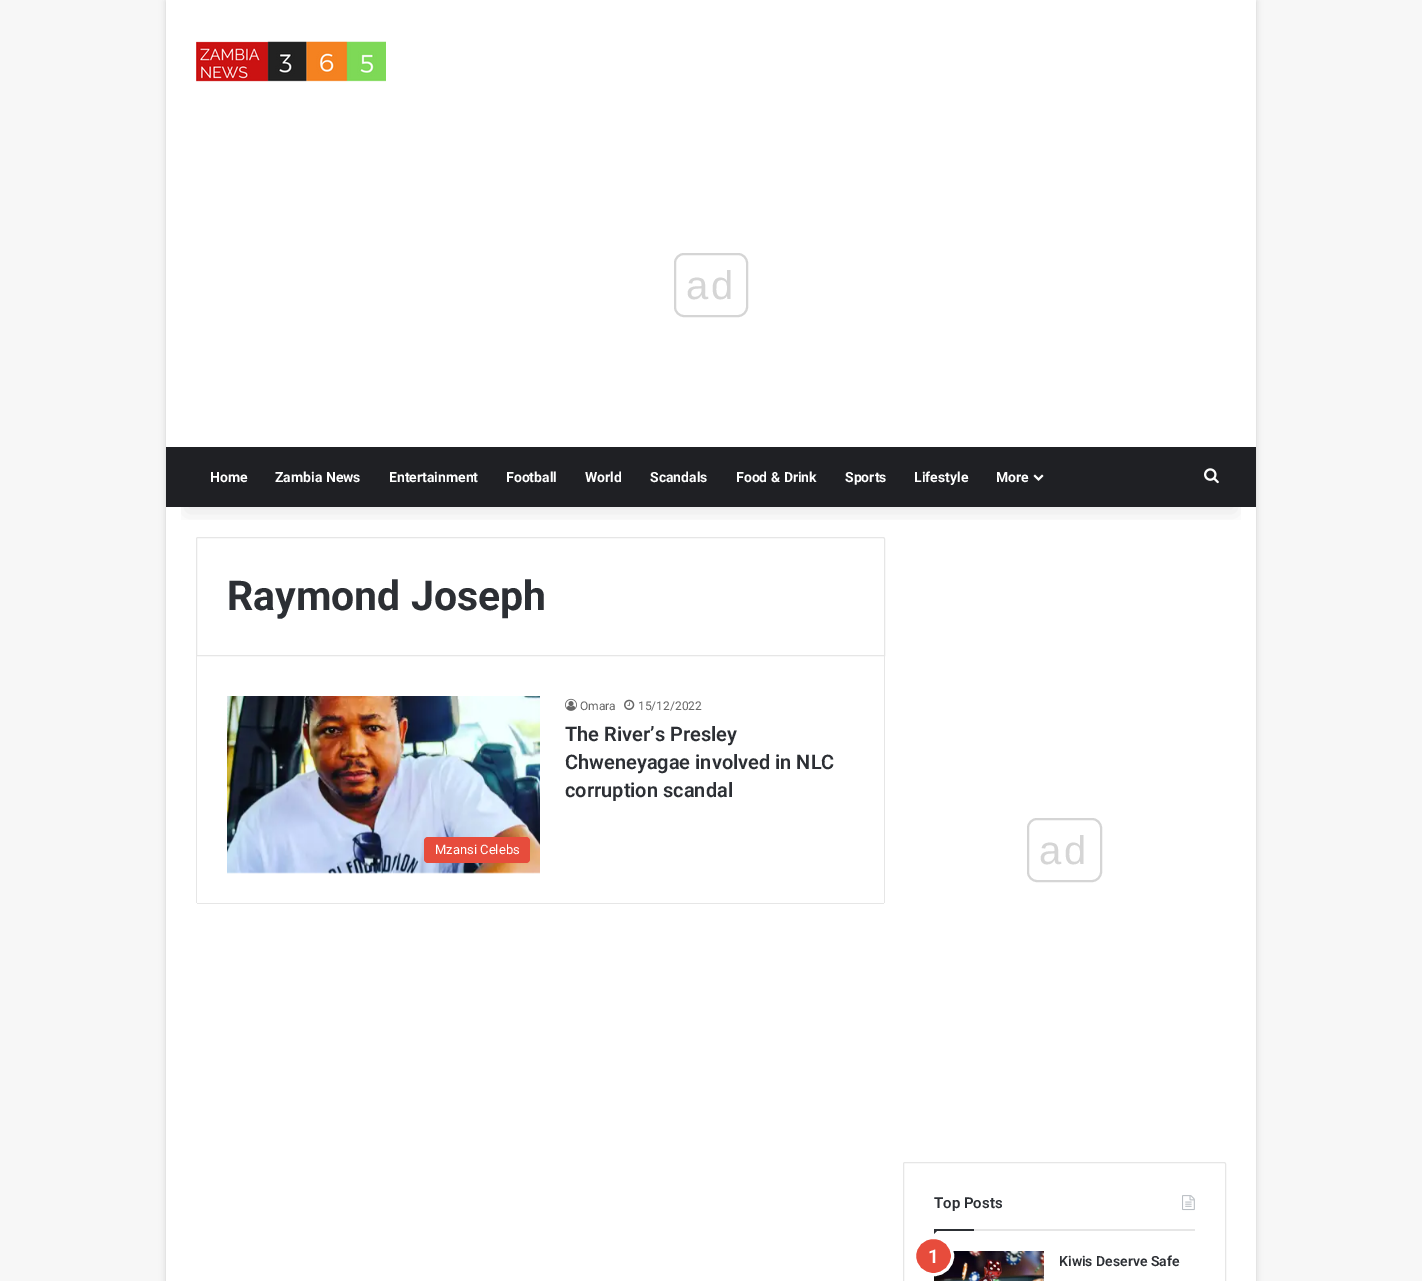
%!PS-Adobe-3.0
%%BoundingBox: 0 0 1422 1281
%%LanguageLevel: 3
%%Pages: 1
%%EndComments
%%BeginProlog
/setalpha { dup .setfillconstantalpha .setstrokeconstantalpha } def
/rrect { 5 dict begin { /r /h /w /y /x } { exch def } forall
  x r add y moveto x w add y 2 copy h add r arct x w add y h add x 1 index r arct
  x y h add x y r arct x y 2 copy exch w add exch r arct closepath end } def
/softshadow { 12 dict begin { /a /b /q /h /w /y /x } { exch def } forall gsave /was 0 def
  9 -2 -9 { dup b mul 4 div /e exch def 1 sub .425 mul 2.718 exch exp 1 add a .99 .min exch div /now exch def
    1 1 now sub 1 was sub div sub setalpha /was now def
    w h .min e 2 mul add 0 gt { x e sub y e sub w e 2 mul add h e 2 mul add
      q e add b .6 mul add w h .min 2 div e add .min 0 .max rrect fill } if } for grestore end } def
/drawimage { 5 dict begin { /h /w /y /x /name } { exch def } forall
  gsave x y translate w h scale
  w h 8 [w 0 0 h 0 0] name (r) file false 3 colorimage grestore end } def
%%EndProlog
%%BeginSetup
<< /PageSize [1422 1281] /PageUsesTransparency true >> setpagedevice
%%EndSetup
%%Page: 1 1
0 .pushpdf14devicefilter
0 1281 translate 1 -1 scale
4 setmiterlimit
0.969 setgray
0 0 1422 1281 rectfill
0.671 setgray
166 1 1090 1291 0 3.5 0.5 softshadow
1 setgray
166 0 1090 1281 rectfill
0.902 setgray
newpath 198 537.5 moveto 883 537.5 lineto 884 537.5 884.5 538 884.5 539 curveto 884.5 655.5 lineto 196.5 655.5 lineto 196.5 539 lineto 196.5 538 197 537.5 198 537.5 curveto closepath stroke
gsave
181 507 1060 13 rectclip
0 setgray
186 45 1050 467 0 10 0.1 softshadow
grestore
(images/1.raw) 196 41 190 41 drawimage
0.835 setgray
2 setlinewidth
675 254 72 62 9 rrect stroke
0.122 0.125 0.141 setrgbcolor
166 447 1090 60 rectfill
(images/2.raw) 1033 474 11 7 drawimage
(images/3.raw) 1204 468 15 16 drawimage
0.902 setgray
884 656 1 247 rectfill
197 903 687 1 rectfill
196 656 1 247 rectfill
(images/4.raw) 565 698 12 13 drawimage
(images/5.raw) 624 699 11 11 drawimage
(images/6.raw) 227 696 313 178 drawimage
0.906 0.298 0.235 setrgbcolor
424 837 106 26 4 rrect fill
0.835 setgray
1028 819 73 62 9 rrect stroke
0.902 setgray
1 setlinewidth
903.5 1162.5 322 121 1.5 rrect stroke
974 1229 221 2 rectfill
(images/7.raw) 1182 1195 13 16 drawimage
0.173 0.184 0.204 setrgbcolor
newpath 934 1229 moveto 939 1229 lineto 934 1234 lineto closepath fill
934 1229 40 2 rectfill
(images/8.raw) 934 1251 110 30 drawimage
0.906 0.298 0.235 setrgbcolor
914.5 1237.5 38 37 18.5 rrect gsave fill grestore
1 setgray
3 setlinewidth
stroke
/LiberationSans-Regular [40 0 0 -40 0 0] selectfont
0.835 setgray
686 299 moveto 3 0 (ad) ashow
/Roboto-Bold [14 0 0 -14 0 0] selectfont
1 setgray
210 482 moveto (Home) show
275 482 moveto (Zambia News) show
389 482 moveto (Entertainment) show
506 482 moveto (Football) show
585 482 moveto (World) show
650 482 moveto (Scandals) show
736 482 moveto (Food & Drink) show
845 482 moveto (Sports) show
914 482 moveto (Lifestyle) show
996 482 moveto (More) show
/Roboto-Bold [41 0 0 -41 0 0] selectfont
0.173 0.184 0.204 setrgbcolor
227 610 moveto (Raymond Joseph) show
/Roboto-Regular [12 0 0 -12 0 0] selectfont
0.4 setgray
580 710 moveto (Omara) show
638 710 moveto (15/12/2022) show
/Roboto-SemiBold [20 0 0 -20 0 0] selectfont
0.173 0.184 0.204 setrgbcolor
565 741 moveto (The River’s Presley) show
565 769 moveto (Chweneyagae involved in NLC) show
565 797 moveto (corruption scandal) show
/Roboto-Regular [13 0 0 -13 0 0] selectfont
1 setgray
435 854 moveto (Mzansi Celebs) show
/LiberationSans-Regular [40 0 0 -40 0 0] selectfont
0.835 setgray
1039 864 moveto 3 0 (ad) ashow
/Roboto-SemiBold [15 0 0 -15 0 0] selectfont
0.173 0.184 0.204 setrgbcolor
934 1208 moveto (Top Posts) show
/Roboto-SemiBold [19 0 0 -19 0 0] selectfont
1 setgray
928 1263 moveto (1) show
/Roboto-SemiBold [14 0 0 -14 0 0] selectfont
0.173 0.184 0.204 setrgbcolor
1059 1266 moveto (Kiwis Deserve Safe) show
.poppdf14devicefilter showpage
%%EOF
